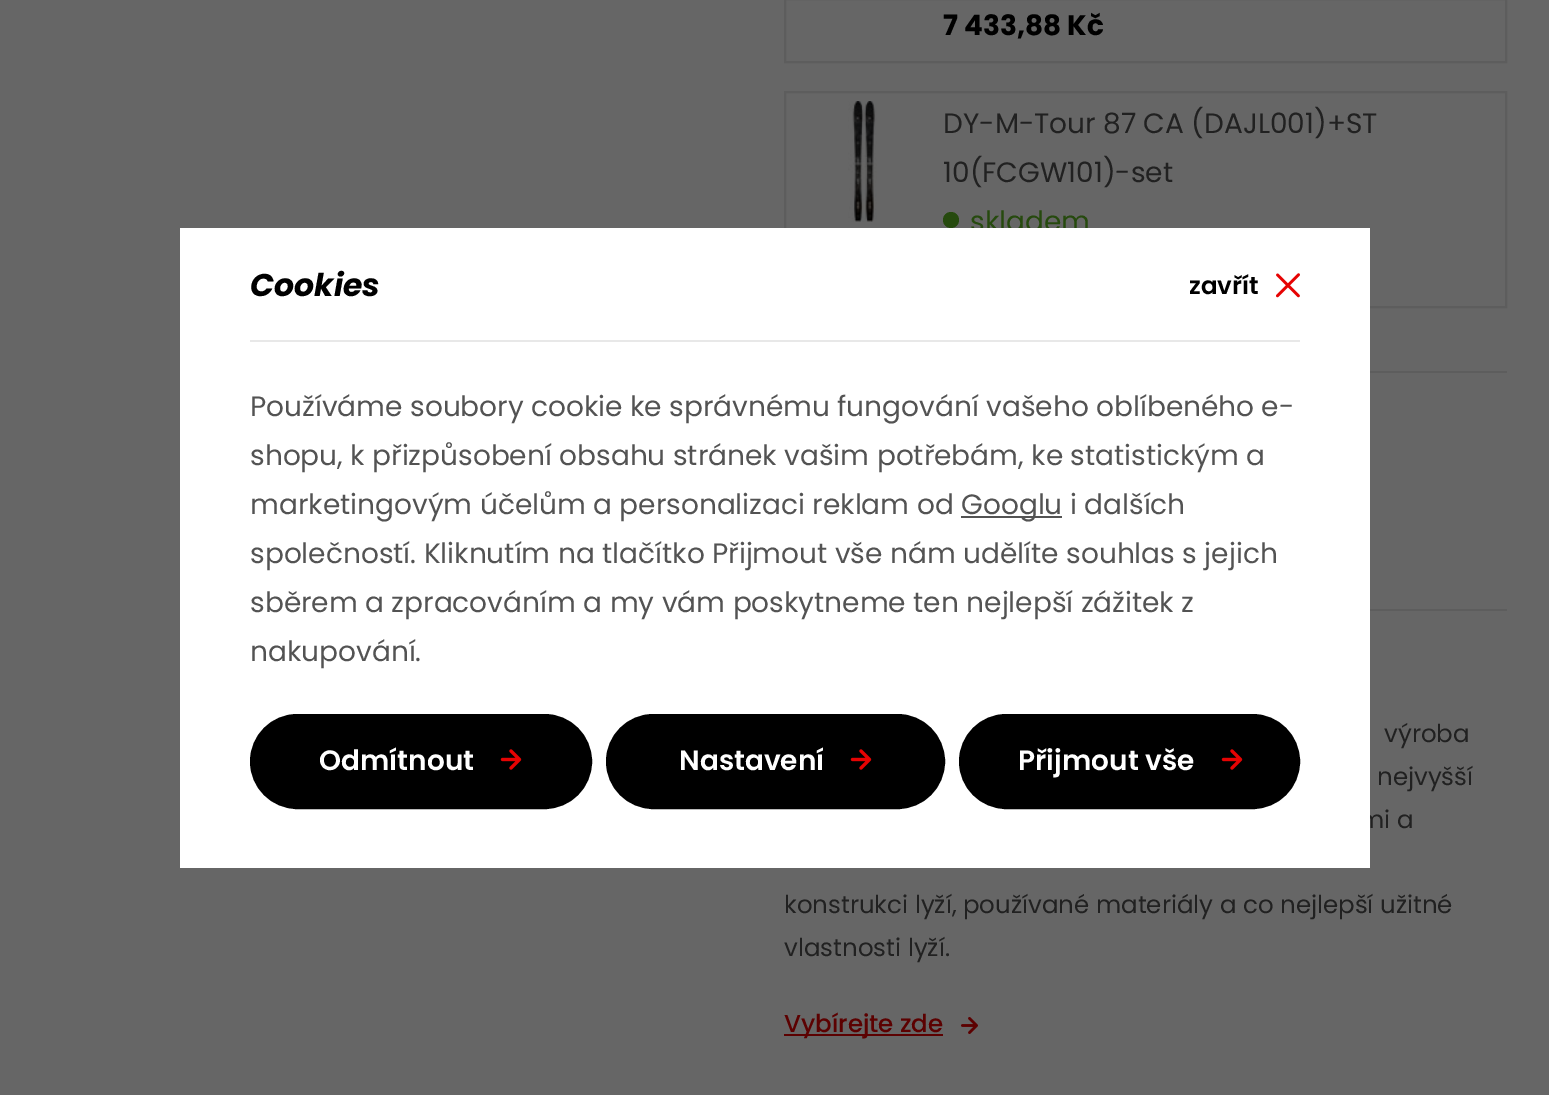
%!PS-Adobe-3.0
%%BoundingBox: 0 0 1549 1095
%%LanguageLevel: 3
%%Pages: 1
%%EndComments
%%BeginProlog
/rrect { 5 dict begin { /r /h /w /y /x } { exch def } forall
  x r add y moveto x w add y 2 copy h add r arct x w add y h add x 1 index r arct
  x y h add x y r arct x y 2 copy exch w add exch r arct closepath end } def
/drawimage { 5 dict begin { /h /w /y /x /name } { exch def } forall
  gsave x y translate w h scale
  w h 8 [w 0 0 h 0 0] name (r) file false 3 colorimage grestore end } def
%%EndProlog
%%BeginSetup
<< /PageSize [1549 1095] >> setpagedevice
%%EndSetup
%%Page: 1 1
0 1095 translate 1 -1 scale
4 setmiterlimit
0.4 setgray
0 0 1549 1095 rectfill
0.365 setgray
2 setlinewidth
785 -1 721 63 rectstroke
785 92 721 215 rectstroke
(images/1.raw) 848 101 29 121 drawimage
0.149 0.29 0.055 setrgbcolor
newpath 951 220 8 0 360 arc closepath fill
0.365 setgray
1370 371 137 2 rectfill
1370 609 137 2 rectfill
0.361 0.004 0.004 setrgbcolor
784 1034 159 2 rectfill
(images/2.raw) 961 1017 17 17 drawimage
/Poppins-Bold [28 0 0 -28 0 0] selectfont
0 setgray
943 35 moveto (7 433,88 Kč) show
/Poppins-Regular [28 0 0 -28 0 0] selectfont
0.129 setgray
943 133 moveto (DY-M-Tour 87 CA \(DAJL001\)+ST) show
943 182 moveto (10\(FCGW101\)-set) show
0.149 0.29 0.055 setrgbcolor
970 231 moveto (skladem) show
/Poppins-Regular [24.5 0 0 -24.5 0 0] selectfont
0.129 setgray
1384 742 moveto (výroba) show
1377 785 moveto (nejvyšší) show
1359 828 moveto (mi a) show
784 913 moveto (konstrukci lyží, používané materiály a co nejlepší užitné) show
784 956 moveto (vlastnosti lyží.) show
/Poppins-Medium [24.5 0 0 -24.5 0 0] selectfont
0.361 0.004 0.004 setrgbcolor
784 1032 moveto (Vybírejte zde) show
1 setgray
180 228 1190 640 rectfill
0.91 setgray
250 340 1050 2 rectfill
/Poppins-BoldItalic [31.5 0 0 -31.5 0 0] selectfont
0 setgray
250 296 moveto (Cookies) show
/Poppins-SemiBold [24.5 0 0 -24.5 0 0] selectfont
1189 294 moveto (zavřít) show
(images/3.raw) 1276 273 24 25 drawimage
/Poppins-Regular [28 0 0 -28 0 0] selectfont
0.325 setgray
250 416 moveto (Používáme soubory cookie ke správnému fungování vašeho oblíbeného e-) show
250 465 moveto (shopu, k přizpůsobení obsahu stránek vašim potřebám, ke statistickým a) show
250 514 moveto (marketingovým účelům a personalizaci reklam od) show
961 516 101 2 rectfill
961 514 moveto (Googlu i dalších) show
250 563 moveto (společností. Kliknutím na tlačítko Přijmout vše nám udělíte souhlas s jejich) show
250 612 moveto (sběrem a zpracováním a my vám poskytneme ten nejlepší zážitek z) show
250 661 moveto (nakupování.) show
0 setgray
252 716 338 91 45.5 rrect gsave fill grestore
4 setlinewidth
stroke
/Poppins-SemiBold [28 0 0 -28 0 0] selectfont
1 setgray
319 770 moveto (Odmítnout) show
(images/4.raw) 500 749 22 21 drawimage
0 setgray
608 716 335 91 45.5 rrect gsave fill grestore
stroke
1 setgray
679 770 moveto (Nastavení) show
(images/4.raw) 850 749 22 21 drawimage
0 setgray
961 716 337 91 45.5 rrect gsave fill grestore
stroke
1 setgray
1018 770 moveto (Přijmout vše) show
(images/4.raw) 1221 749 22 21 drawimage
showpage
%%EOF
